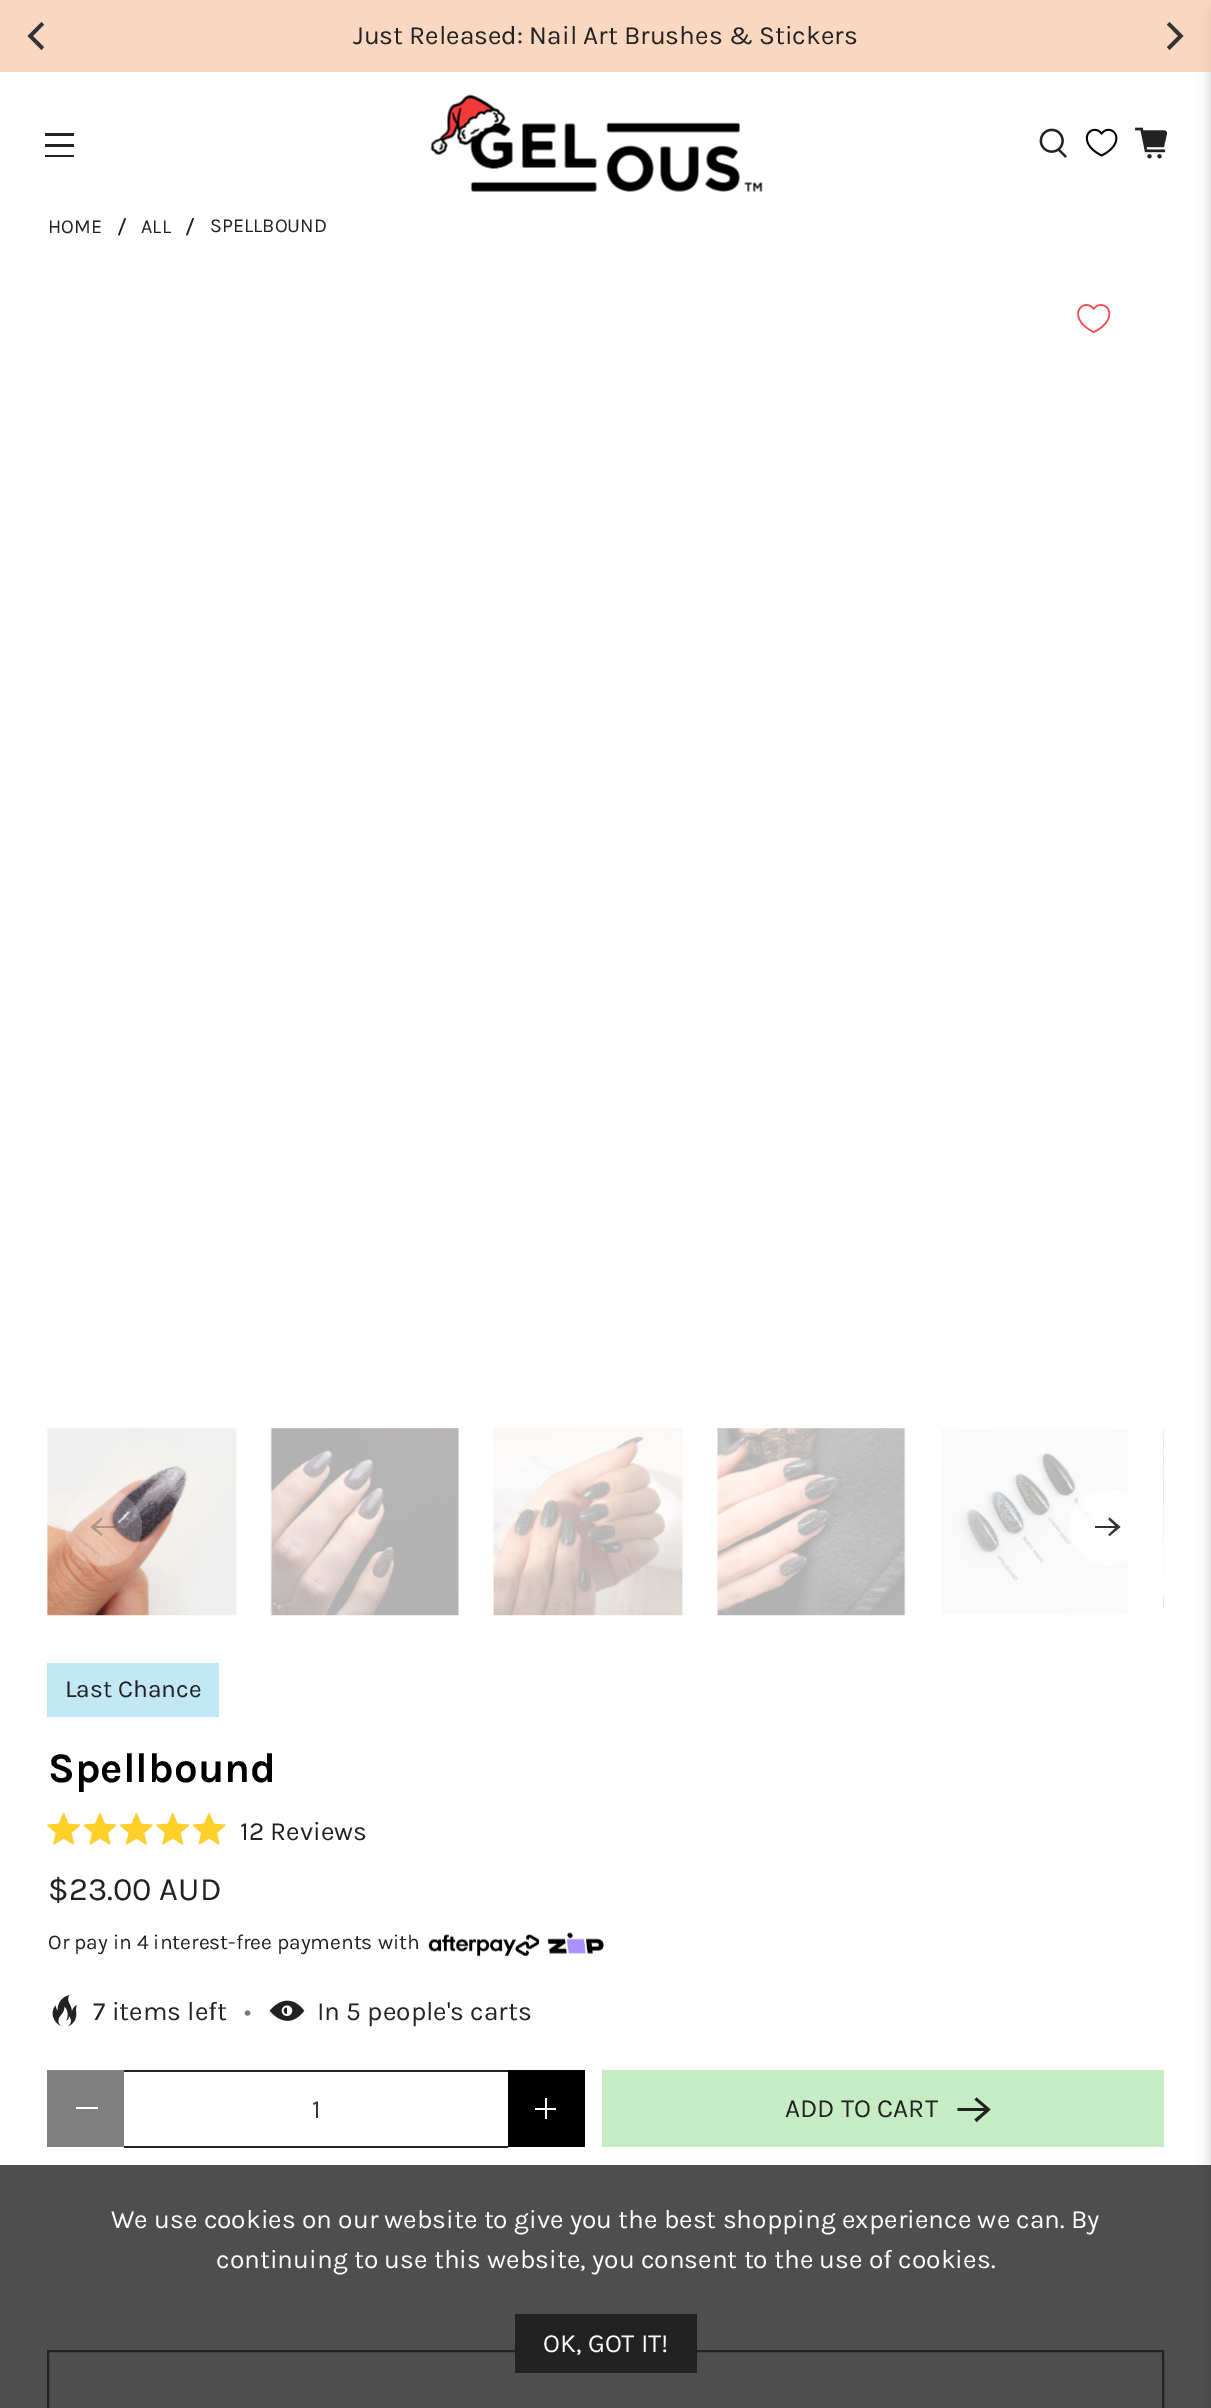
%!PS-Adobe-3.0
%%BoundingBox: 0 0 1211 2408
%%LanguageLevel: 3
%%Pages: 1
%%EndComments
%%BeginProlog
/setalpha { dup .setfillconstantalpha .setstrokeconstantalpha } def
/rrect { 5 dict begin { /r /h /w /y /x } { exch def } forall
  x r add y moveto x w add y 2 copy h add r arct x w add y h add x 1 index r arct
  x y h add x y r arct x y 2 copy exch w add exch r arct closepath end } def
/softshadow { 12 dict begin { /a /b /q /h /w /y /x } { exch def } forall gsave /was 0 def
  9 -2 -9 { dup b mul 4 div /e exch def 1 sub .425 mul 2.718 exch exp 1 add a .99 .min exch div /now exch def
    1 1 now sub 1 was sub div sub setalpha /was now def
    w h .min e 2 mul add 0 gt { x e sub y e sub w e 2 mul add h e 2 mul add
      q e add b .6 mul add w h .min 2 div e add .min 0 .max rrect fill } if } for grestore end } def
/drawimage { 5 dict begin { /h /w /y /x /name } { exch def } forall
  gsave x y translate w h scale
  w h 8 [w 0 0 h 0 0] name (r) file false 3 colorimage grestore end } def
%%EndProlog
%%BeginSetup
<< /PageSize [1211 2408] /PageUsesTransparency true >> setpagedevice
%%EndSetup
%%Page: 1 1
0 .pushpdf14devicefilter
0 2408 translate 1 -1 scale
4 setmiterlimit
1 setgray
0 0 1211 2408 rectfill
0.133 setgray
45 133 29 3 rectfill
45 144 29 3 rectfill
45 155 29 2 rectfill
(images/1.raw) 430 94 333 98 drawimage
(images/2.raw) 1039 128 28 30 drawimage
(images/3.raw) 1085 128 33 29 drawimage
(images/4.raw) 1135 127 32 32 drawimage
0.039 setgray
1211 14 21 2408 0 7 0.1 softshadow
0.98 0.843 0.753 setrgbcolor
0 0 1211 72 rectfill
0.2 setgray
newpath 27.5 36 moveto 41.5 50 lineto 44 47 lineto 33 36 lineto 44 24.5 lineto 41.5 22 lineto closepath fill
newpath 1183.5 36 moveto 1169.5 22 lineto 1167 24.5 lineto 1178 36 lineto 1167 47 lineto 1169.5 50 lineto closepath fill
0.133 setgray
2 setlinewidth
48 2351 1115 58 rectstroke
0.8 setalpha
0 2165 1211 243 rectfill
1 setalpha
0.039 setgray
1211 14 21 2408 0 7 0.1 softshadow
0.133 setgray
newpath 118 235 moveto 124.5 218 lineto 126 218.5 lineto 119.5 235.5 lineto closepath fill
newpath 186 235 moveto 192.5 218 lineto 194 218.5 lineto 187.5 235.5 lineto closepath fill
(images/5.raw) 1077 304 34 29 drawimage
(images/6.raw) 47 1428 190 188 drawimage
(images/7.raw) 270 1428 189 188 drawimage
(images/8.raw) 493 1428 190 188 drawimage
(images/9.raw) 717 1428 189 188 drawimage
(images/10.raw) 941 1429 187 186 drawimage
(images/11.raw) 1163 1428 1 180 drawimage
0.22 setalpha
1 setgray
newpath 103.5 1527.5 38.5 0 360 arc closepath fill
0.3 setalpha
0.2 setgray
newpath 116 1526 moveto 95.5 1526 lineto 102.5 1519.5 lineto 101.5 1517.5 lineto 90.5 1527 lineto 101.5 1536 lineto 102.5 1534.5 lineto 95.5 1528 lineto 116 1528 lineto closepath fill
0.75 setalpha
1 setgray
newpath 1107.5 1527.5 38.5 0 360 arc closepath fill
1 setalpha
0.2 setgray
newpath 1095 1528 moveto 1115.5 1528 lineto 1108.5 1534.5 lineto 1109.5 1536 lineto 1120.5 1527 lineto 1109.5 1517.5 lineto 1108.5 1519.5 lineto 1115.5 1526 lineto 1095 1526 lineto closepath fill
0.761 0.91 0.973 setrgbcolor
47 1663 172 54 rectfill
(images/12.raw) 47 1813 179 32 drawimage
(images/13.raw) 47 1813 179 32 drawimage
(images/14.raw) 428 1934 111 22 drawimage
(images/15.raw) 547 1932 57 22 drawimage
(images/16.raw) 52 1995 25 32 drawimage
(images/17.raw) 269 2000 36 21 drawimage
0.502 setgray
47 2070 77 77 rectfill
1 setgray
76 2107 22 2 rectfill
0.133 setgray
124 2070 384 2 rectfill
124 2146 384 2 rectfill
0 setgray
508 2070 77 77 rectfill
1 setgray
535 2108 21 2 rectfill
545 2098 2 21 rectfill
0.776 0.925 0.765 setrgbcolor
602 2070 562 77 rectfill
0.133 setgray
newpath 976.5 2097.5 moveto 974.5 2099.5 lineto 984.5 2108 lineto 957.5 2108 lineto 957.5 2111 lineto 984.5 2111 lineto 974.5 2119.5 lineto 976.5 2122 lineto 990.5 2109.5 lineto closepath fill
515 2314 182 59 rectfill
/Karla-Regular [26.25 0 0 -26.25 0 0] selectfont
353 44 moveto (Just Released: Nail Art Brushes & Stickers) show
/Karla-Regular [19.75 0 0 -19.75 0 0] selectfont
48 233 moveto (HOME) show
141 233 moveto (ALL) show
210 232 moveto (SPELLBOUND) show
/Karla-Regular [24.5 0 0 -24.5 0 0] selectfont
65 1697 moveto (Last Chance) show
/Karla-Bold [42 0 0 -42 0 0] selectfont
0 setgray
48 1782 moveto (Spellbound) show
/Karla-Regular [26.25 0 0 -26.25 0 0] selectfont
0.133 setgray
240 1840 moveto (12 Reviews) show
/Karla-Regular [32.75 0 0 -32.75 0 0] selectfont
48 1900 moveto ($23.00 AUD) show
/Karla-Regular [21 0 0 -21 0 0] selectfont
48 1949 moveto (Or pay in 4 interest-free payments with) show
/Karla-Regular [26.25 0 0 -26.25 0 0] selectfont
93 2020 moveto (7 items left) show
0.467 setgray
244 2020 moveto (•) show
0.133 setgray
317 2020 moveto (In 5 people's carts) show
0.212 setgray
312 2118 moveto (1) show
0.133 setgray
785 2117 moveto (ADD TO CART) show
1 setgray
111 2228 moveto (We use cookies on our website to give you the best shopping experience we can. By) show
216 2268 moveto (continuing to use this website, you consent to the use of cookies.) show
543 2352 moveto (OK, GOT IT!) show
.poppdf14devicefilter showpage
%%EOF
